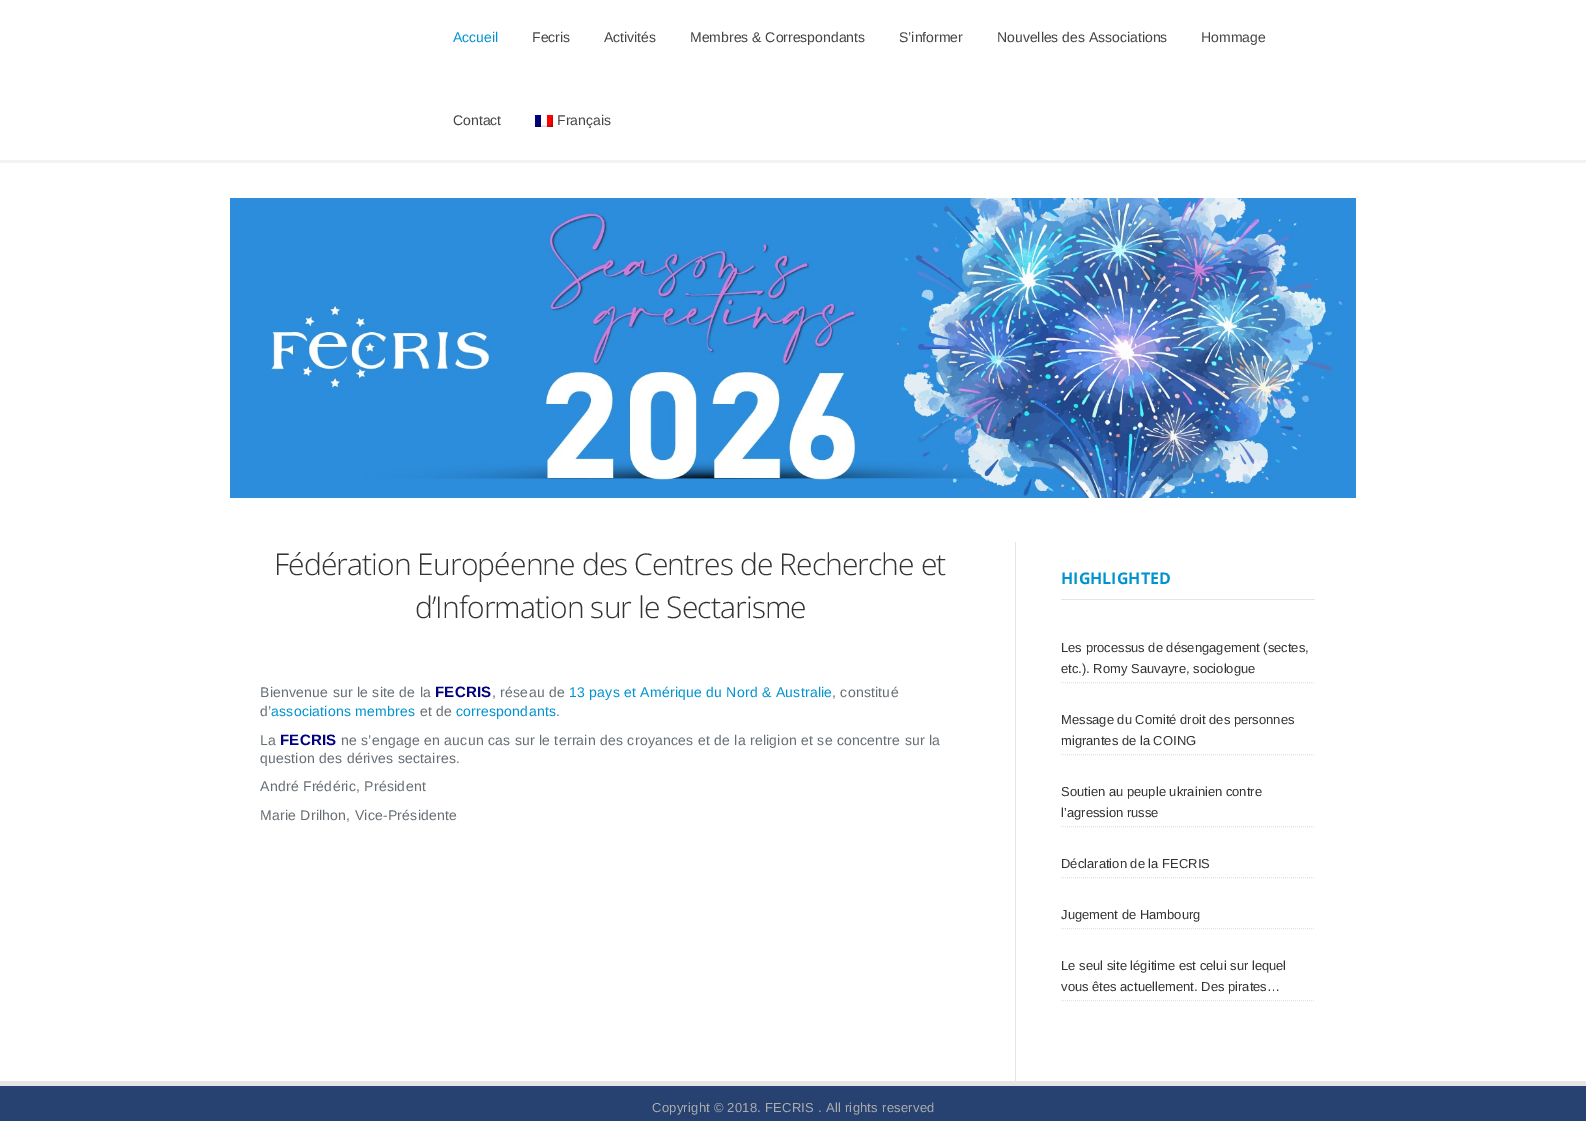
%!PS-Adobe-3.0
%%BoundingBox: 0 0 1586 1121
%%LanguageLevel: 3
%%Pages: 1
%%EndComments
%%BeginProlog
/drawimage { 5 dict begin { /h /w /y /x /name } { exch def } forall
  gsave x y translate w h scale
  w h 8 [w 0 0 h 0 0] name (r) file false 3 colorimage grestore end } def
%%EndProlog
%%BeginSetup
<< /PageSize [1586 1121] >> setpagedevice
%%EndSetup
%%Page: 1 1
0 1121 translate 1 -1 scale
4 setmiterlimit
1 setgray
0 0 1586 1121 rectfill
0.953 setgray
0 160 1586 3 rectfill
(images/1.raw) 535 115 18 12 drawimage
(images/2.raw) 230 198 1126 300 drawimage
0.898 setgray
1015 542 1 539 rectfill
1061 599 254 1 rectfill
0.89 setgray
[1 1] 0 setdash
newpath 1061 682.5 moveto 1315 682.5 lineto stroke
newpath 1061 754.5 moveto 1315 754.5 lineto stroke
newpath 1061 826.5 moveto 1315 826.5 lineto stroke
newpath 1061 877.5 moveto 1315 877.5 lineto stroke
newpath 1061 928.5 moveto 1315 928.5 lineto stroke
newpath 1061 1000.5 moveto 1315 1000.5 lineto stroke
0.153 0.255 0.443 setrgbcolor
0 1086 1586 35 rectfill
0.898 setgray
0 1081 1586 5 rectfill
/LiberationSans-Regular [14 0 0 -14 0 0] selectfont
0 0.576 0.816 setrgbcolor
453 42 moveto (Accueil) show
0.267 setgray
532 42 moveto (Fecris) show
604 42 moveto (Activités) show
690 42 moveto (Membres & Correspondants) show
899 42 moveto (S’informer) show
997 42 moveto (Nouvelles des Associations) show
1201 42 moveto (Hommage) show
453 125 moveto (Contact) show
557 125 moveto (Français) show
/OpenSans-Light [30 0 0 -30 0 0] selectfont
0.2 setgray
274 575 moveto -0.9 0 (Fédération Européenne des Centres de Recherche et) ashow
415 618 moveto -0.9 0 (d’Information sur le Sectarisme) ashow
/LiberationSans-Regular [14 0 0 -14 0 0] selectfont
0.4 0.431 0.455 setrgbcolor
260 697 moveto 0.25 0 (Bienvenue sur le site de la) ashow
/LiberationSans-Bold [15 0 0 -15 0 0] selectfont
0 0 0.502 setrgbcolor
435 697 moveto 0.25 0 (FECRIS) ashow
/LiberationSans-Regular [14 0 0 -14 0 0] selectfont
0.4 0.431 0.455 setrgbcolor
492 697 moveto 0.25 0 (, réseau de) ashow
0 0.576 0.816 setrgbcolor
569 697 moveto 0.25 0 (13 pays et Amérique du Nord & Australie) ashow
0.4 0.431 0.455 setrgbcolor
832 697 moveto 0.25 0 (, constitué) ashow
260 716 moveto 0.25 0 (d’) ashow
0 0.576 0.816 setrgbcolor
271 716 moveto 0.25 0 (associations membres) ashow
0.4 0.431 0.455 setrgbcolor
420 716 moveto 0.25 0 (et de) ashow
0 0.576 0.816 setrgbcolor
456 716 moveto 0.25 0 (correspondants) ashow
0.4 0.431 0.455 setrgbcolor
556 716 moveto 0.25 0 (.) ashow
260 745 moveto 0.25 0 (La) ashow
/LiberationSans-Bold [15 0 0 -15 0 0] selectfont
0 0 0.502 setrgbcolor
280 745 moveto 0.25 0 (FECRIS) ashow
/LiberationSans-Regular [14 0 0 -14 0 0] selectfont
0.4 0.431 0.455 setrgbcolor
341 745 moveto 0.25 0 (ne s’engage en aucun cas sur le terrain des croyances et de la religion et se concentre sur la) ashow
260 763 moveto 0.25 0 (question des dérives sectaires.) ashow
260 791 moveto 0.25 0 (André Frédéric, Président) ashow
260 820 moveto 0.25 0 (Marie Drilhon, Vice-Présidente) ashow
/OpenSans-Bold [16 0 0 -16 0 0] selectfont
0 0.576 0.816 setrgbcolor
1061 584 moveto (HIGHLIGHTED) show
/LiberationSans-Regular [13 0 0 -13 0 0] selectfont
0.2 setgray
1061 652 moveto (Les processus de désengagement \(sectes,) show
1061 673 moveto (etc.\). Romy Sauvayre, sociologue) show
1061 724 moveto (Message du Comité droit des personnes) show
1061 745 moveto (migrantes de la COING) show
1061 796 moveto (Soutien au peuple ukrainien contre) show
1061 817 moveto (l’agression russe) show
1061 868 moveto (Déclaration de la FECRIS) show
1061 919 moveto (Jugement de Hambourg) show
1061 970 moveto (Le seul site légitime est celui sur lequel) show
1061 991 moveto (vous êtes actuellement. Des pirates…) show
0.678 setgray
652 1112 moveto 0.25 0 (Copyright © 2018. FECRIS . All rights reserved) ashow
showpage
%%EOF
